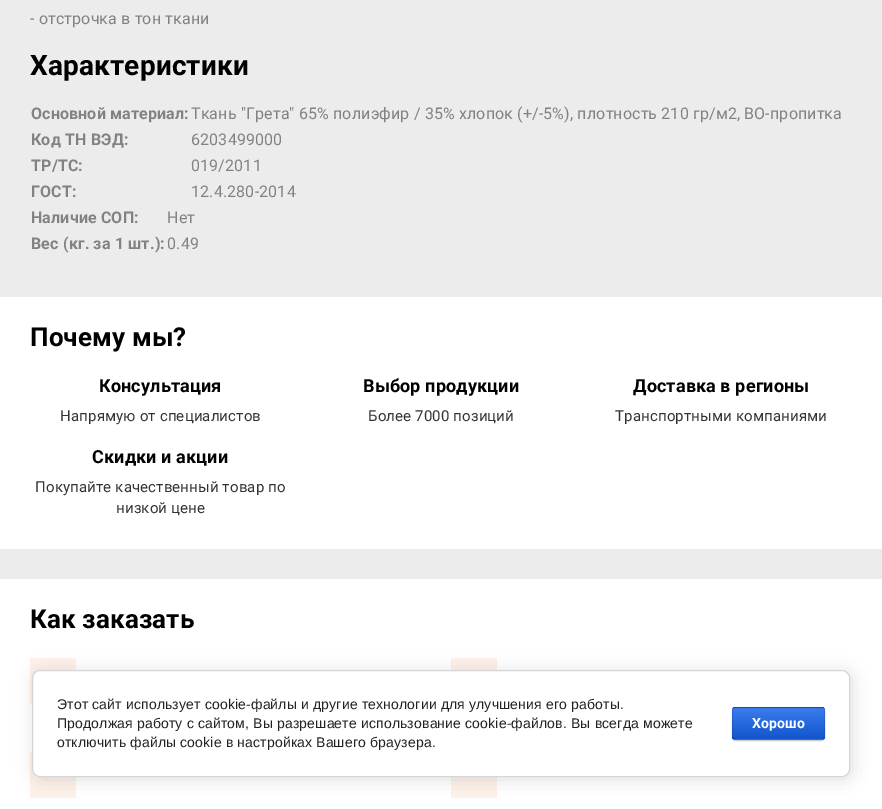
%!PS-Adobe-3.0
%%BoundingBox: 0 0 882 809
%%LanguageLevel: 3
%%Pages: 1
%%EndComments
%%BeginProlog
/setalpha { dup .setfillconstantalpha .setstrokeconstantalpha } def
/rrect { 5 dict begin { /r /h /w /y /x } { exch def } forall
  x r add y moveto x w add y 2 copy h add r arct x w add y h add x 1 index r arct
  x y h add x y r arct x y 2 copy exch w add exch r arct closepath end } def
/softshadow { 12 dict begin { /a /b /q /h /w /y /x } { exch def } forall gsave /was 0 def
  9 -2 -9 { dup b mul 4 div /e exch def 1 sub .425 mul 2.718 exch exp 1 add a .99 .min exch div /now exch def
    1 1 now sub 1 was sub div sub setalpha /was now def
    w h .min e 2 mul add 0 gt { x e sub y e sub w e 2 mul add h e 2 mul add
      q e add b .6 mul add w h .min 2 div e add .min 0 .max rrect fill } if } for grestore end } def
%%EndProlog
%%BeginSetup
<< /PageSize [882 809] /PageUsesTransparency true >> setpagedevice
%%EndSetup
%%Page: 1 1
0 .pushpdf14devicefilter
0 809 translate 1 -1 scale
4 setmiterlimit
0.925 setgray
0 0 882 809 rectfill
1 setgray
0 297 882 252 rectfill
0 579 882 230 rectfill
0.992 0.945 0.914 setrgbcolor
30 658 46 46 rectfill
451 658 46 12 rectfill
30 752 46 46 rectfill
451 777 46 21 rectfill
0 setgray
34 672 818 107 8 9 0.14 softshadow
1 setgray
32.5 670.5 817 106 7.5 rrect gsave fill grestore
0.839 setgray
stroke
0 setgray
732 708 93 33 4 0.5 0.2 softshadow
gsave
732 707 93 33 4 rrect clip newpath
gsave newpath 732 707 moveto 825 707 lineto 825 708 lineto 732 708 lineto closepath clip newpath
<< /ShadingType 2 /ColorSpace /DeviceRGB /Coords [779 677 779 708] /Extend [true true] /Function << /FunctionType 2 /Domain [0 1] /C0 [0.231 0.486 0.937] /C1 [0.067 0.333 0.8] /N 1 >> >> shfill grestore
gsave newpath 732 708 moveto 825 708 lineto 825 739 lineto 732 739 lineto closepath clip newpath
<< /ShadingType 2 /ColorSpace /DeviceRGB /Coords [779 708 779 739] /Extend [true true] /Function << /FunctionType 2 /Domain [0 1] /C0 [0.231 0.486 0.937] /C1 [0.067 0.333 0.8] /N 1 >> >> shfill grestore
gsave newpath 732 739 moveto 825 739 lineto 825 740 lineto 732 740 lineto closepath clip newpath
<< /ShadingType 2 /ColorSpace /DeviceRGB /Coords [779 739 779 770] /Extend [true true] /Function << /FunctionType 2 /Domain [0 1] /C0 [0.231 0.486 0.937] /C1 [0.067 0.333 0.8] /N 1 >> >> shfill grestore
grestore
0.1 setalpha
732.5 707.5 92 32 3.5 rrect stroke
/Roboto-Regular [16 0 0 -16 0 0] selectfont
1 setalpha
0.51 0.51 0.514 setrgbcolor
30 24 moveto 0.15 0 (- отстрочка в тон ткани) ashow
/Roboto-Bold [28 0 0 -28 0 0] selectfont
0 setgray
30 75 moveto 0.15 0 (Характеристики) ashow
/Roboto-Bold [16 0 0 -16 0 0] selectfont
0.51 0.51 0.514 setrgbcolor
31 119 moveto 0.15 0 (Основной материал:) ashow
/Roboto-Regular [16 0 0 -16 0 0] selectfont
191 119 moveto 0.15 0 (Ткань "Грета" 65% полиэфир / 35% хлопок \(+/-5%\), плотность 210 гр/м2, ВО-пропитка) ashow
/Roboto-Bold [16 0 0 -16 0 0] selectfont
31 145 moveto 0.15 0 (Код ТН ВЭД:) ashow
/Roboto-Regular [16 0 0 -16 0 0] selectfont
191 145 moveto 0.15 0 (6203499000) ashow
/Roboto-Bold [16 0 0 -16 0 0] selectfont
31 171 moveto 0.15 0 (ТР/ТС:) ashow
/Roboto-Regular [16 0 0 -16 0 0] selectfont
191 171 moveto 0.15 0 (019/2011) ashow
/Roboto-Bold [16 0 0 -16 0 0] selectfont
31 197 moveto 0.15 0 (ГОСТ:) ashow
/Roboto-Regular [16 0 0 -16 0 0] selectfont
191 197 moveto 0.15 0 (12.4.280-2014) ashow
/Roboto-Bold [16 0 0 -16 0 0] selectfont
31 223 moveto 0.15 0 (Наличие СОП:) ashow
/Roboto-Regular [16 0 0 -16 0 0] selectfont
167 223 moveto 0.15 0 (Нет) ashow
/Roboto-Bold [16 0 0 -16 0 0] selectfont
31 249 moveto 0.15 0 (Вес \(кг. за 1 шт.\):) ashow
/Roboto-Regular [16 0 0 -16 0 0] selectfont
167 249 moveto 0.15 0 (0.49) ashow
/Roboto-Bold [26 0 0 -26 0 0] selectfont
0 setgray
30 346 moveto 0.15 0 (Почему мы?) ashow
/Roboto-Bold [18 0 0 -18 0 0] selectfont
99 392 moveto 0.15 0 (Консультация) ashow
/Roboto-Regular [15 0 0 -15 0 0] selectfont
0.2 setgray
60 421 moveto 0.15 0 (Напрямую от специалистов) ashow
/Roboto-Bold [18 0 0 -18 0 0] selectfont
0 setgray
363 392 moveto 0.15 0 (Выбор продукции) ashow
/Roboto-Regular [15 0 0 -15 0 0] selectfont
0.2 setgray
368 421 moveto 0.15 0 (Более 7000 позиций) ashow
/Roboto-Bold [18 0 0 -18 0 0] selectfont
0 setgray
633 392 moveto 0.15 0 (Доставка в регионы) ashow
/Roboto-Regular [15 0 0 -15 0 0] selectfont
0.2 setgray
615 421 moveto 0.15 0 (Транспортными компаниями) ashow
/Roboto-Bold [18 0 0 -18 0 0] selectfont
0 setgray
92 463 moveto 0.15 0 (Скидки и акции) ashow
/Roboto-Regular [15 0 0 -15 0 0] selectfont
0.2 setgray
35 492 moveto 0.15 0 (Покупайте качественный товар по) ashow
116 513 moveto 0.15 0 (низкой цене) ashow
/Roboto-Bold [26 0 0 -26 0 0] selectfont
0 setgray
30 628 moveto 0.15 0 (Как заказать) ashow
/LiberationSans-Regular [14 0 0 -14 0 0] selectfont
0.129 setgray
57 709 moveto 0.15 0 (Этот сайт использует cookie-файлы и другие технологии для улучшения его работы.) ashow
57 728 moveto 0.15 0 (Продолжая работу с сайтом, Вы разрешаете использование cookie-файлов. Вы всегда можете) ashow
57 747 moveto 0.15 0 (отключить файлы cookie в настройках Вашего браузера.) ashow
/Roboto-Bold [14 0 0 -14 0 0] selectfont
1 setgray
752 728 moveto 0.15 0 (Хорошо) ashow
.poppdf14devicefilter showpage
%%EOF
